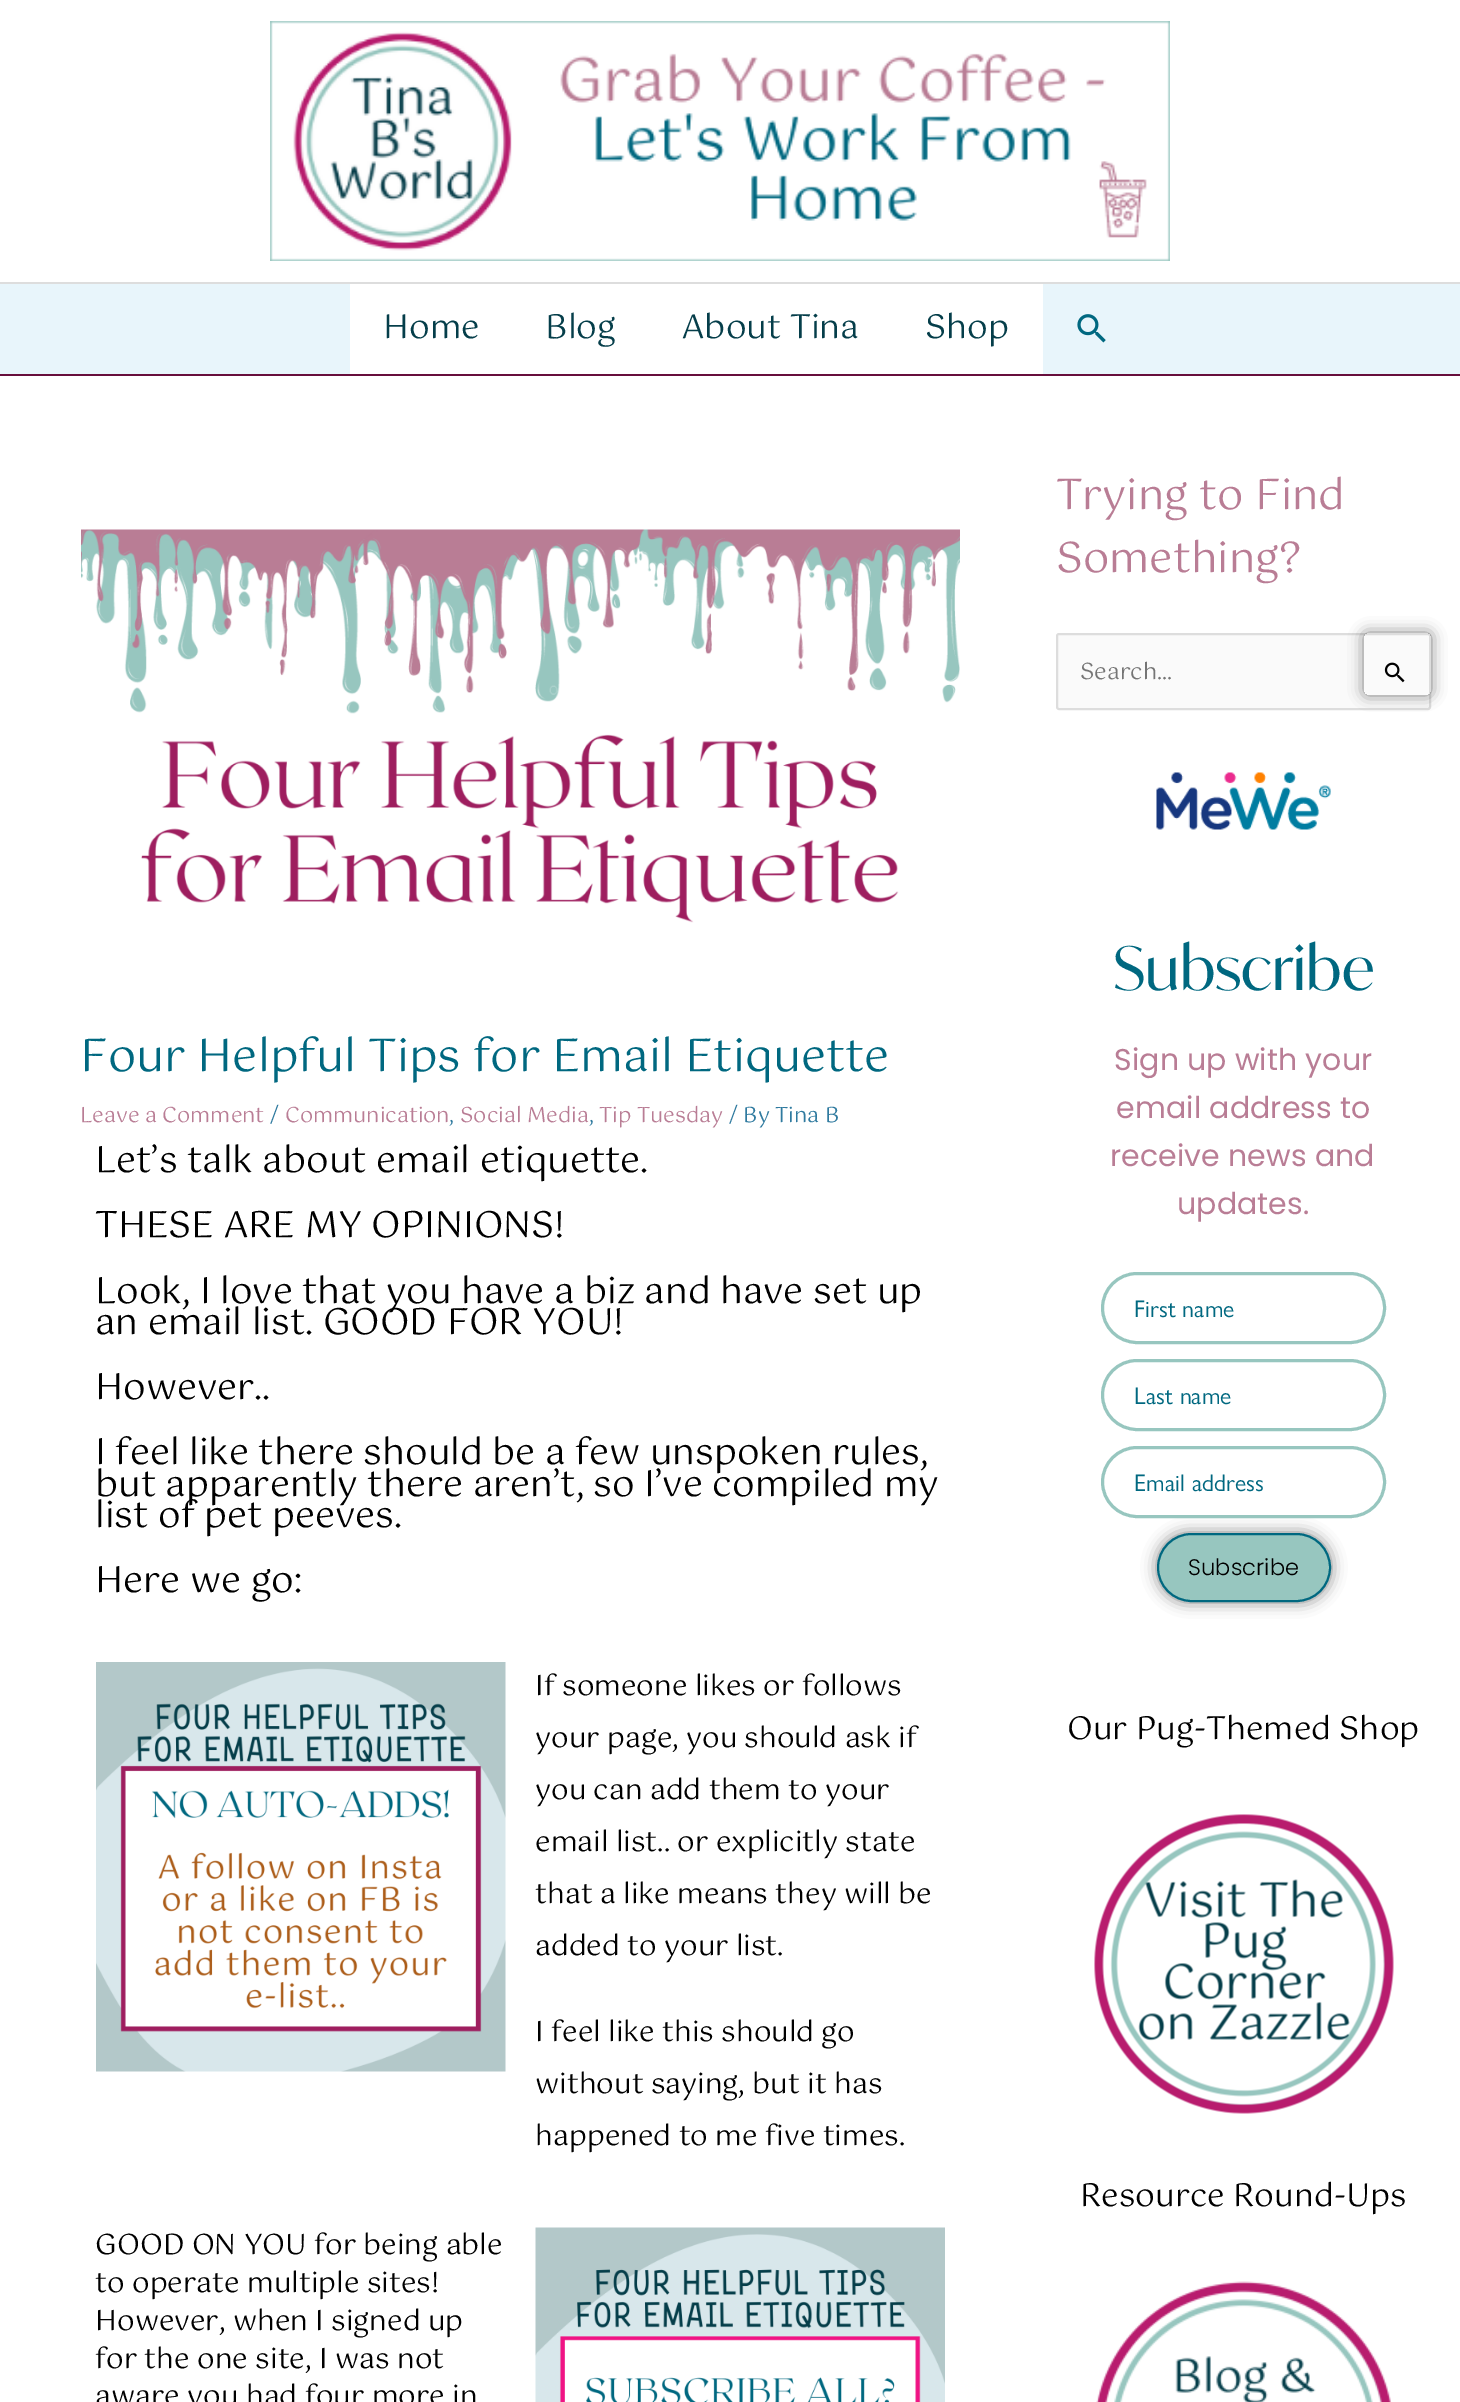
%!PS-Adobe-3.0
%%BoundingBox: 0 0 1460 2402
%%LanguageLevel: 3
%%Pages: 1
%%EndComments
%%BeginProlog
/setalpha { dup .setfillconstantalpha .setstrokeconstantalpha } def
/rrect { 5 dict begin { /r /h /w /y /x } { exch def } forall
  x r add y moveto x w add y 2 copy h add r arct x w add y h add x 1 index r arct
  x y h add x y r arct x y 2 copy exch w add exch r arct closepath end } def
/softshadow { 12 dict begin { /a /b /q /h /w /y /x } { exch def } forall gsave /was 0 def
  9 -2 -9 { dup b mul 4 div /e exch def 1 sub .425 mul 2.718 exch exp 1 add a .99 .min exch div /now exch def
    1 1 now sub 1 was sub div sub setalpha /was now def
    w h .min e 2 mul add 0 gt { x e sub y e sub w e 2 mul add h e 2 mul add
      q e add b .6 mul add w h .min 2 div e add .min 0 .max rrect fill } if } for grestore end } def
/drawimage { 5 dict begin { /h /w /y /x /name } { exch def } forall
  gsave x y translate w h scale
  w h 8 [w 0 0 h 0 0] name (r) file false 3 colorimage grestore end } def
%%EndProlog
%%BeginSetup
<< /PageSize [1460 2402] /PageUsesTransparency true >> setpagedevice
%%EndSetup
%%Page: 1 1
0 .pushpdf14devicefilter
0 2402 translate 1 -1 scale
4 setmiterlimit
1 setgray
0 0 1460 2402 rectfill
0.867 setgray
0 282 1460 2 rectfill
(images/1.raw) 270 21 900 240 drawimage
0.91 0.961 0.984 setrgbcolor
0 284 1460 90 rectfill
0.404 0.055 0.235 setrgbcolor
0 374 1460 2 rectfill
1 setgray
350 284 693 90 rectfill
(images/2.raw) 1077 314 29 29 drawimage
(images/3.raw) 81 529 879 394 drawimage
(images/4.raw) 96 1662 410 410 drawimage
(images/5.raw) 535 2227 410 175 drawimage
0.98 setgray
1057 634 373 75 2 rrect gsave fill grestore
0.867 setgray
2 setlinewidth
stroke
(images/6.raw) 1384 662 21 21 drawimage
gsave
newpath 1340 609 moveto 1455 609 lineto 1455 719 lineto 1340 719 lineto closepath 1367 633 moveto 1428 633 lineto 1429.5 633 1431 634.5 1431 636 curveto 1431 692 lineto 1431 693.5 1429.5 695 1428 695 curveto 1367 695 lineto 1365.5 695 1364 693.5 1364 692 curveto 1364 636 lineto 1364 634.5 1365.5 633 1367 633 curveto closepath eoclip newpath
0 setgray
1364 633 67 62 3 7.5 0.5 softshadow
grestore
(images/7.raw) 1156 772 175 58 drawimage
0.592 0.776 0.749 setrgbcolor
3 setlinewidth
1102.5 1273.5 282 69 34.5 rrect stroke
1102.5 1360.5 282 69 34.5 rrect stroke
0 setgray
1157 1533 174 69 34.5 7.5 0.5 softshadow
0.592 0.776 0.749 setrgbcolor
1102.5 1447.5 282 69 34.5 rrect stroke
1158 1534 172 67 33.5 rrect gsave fill grestore
0 0.408 0.502 setrgbcolor
2 setlinewidth
stroke
(images/8.raw) 1094 1814 300 300 drawimage
(images/9.raw) 1096 2281 295 121 drawimage
/Gotu-Regular [33 0 0 -33 0 0] selectfont
0.02 0.243 0.29 setrgbcolor
383 338 moveto (Home) show
545 338 moveto (Blog) show
682 338 moveto (About Tina) show
925 338 moveto (Shop) show
/Gotu-Regular [45 0 0 -45 0 0] selectfont
0 0.408 0.502 setrgbcolor
80 1071 moveto (Four Helpful Tips for Email Etiquette) show
/Gotu-Regular [21 0 0 -21 0 0] selectfont
0.725 0.49 0.584 setrgbcolor
80 1122 moveto (Leave a Comment) show
0.184 0.478 0.624 setrgbcolor
270 1122 moveto (/) show
0.725 0.49 0.584 setrgbcolor
285 1122 moveto (Communication) show
0.184 0.478 0.624 setrgbcolor
449 1122 moveto (,) show
0.725 0.49 0.584 setrgbcolor
460 1122 moveto (Social Media) show
0.184 0.478 0.624 setrgbcolor
589 1122 moveto (,) show
0.725 0.49 0.584 setrgbcolor
599 1122 moveto (Tip Tuesday) show
0.184 0.478 0.624 setrgbcolor
729 1122 moveto (/ By Tina B) show
/Gotu-Regular [36 0 0 -36 0 0] selectfont
0 setgray
95 1172 moveto (Let’s talk about email etiquette.) show
95 1237 moveto (THESE ARE MY OPINIONS!) show
95 1303 moveto (Look, I love that you have a biz and have set up) show
95 1334 moveto (an email list. GOOD FOR YOU!) show
95 1399 moveto (However..) show
95 1464 moveto (I feel like there should be a few unspoken rules,) show
95 1496 moveto (but apparently there aren’t, so I’ve compiled my) show
95 1527 moveto (list of pet peeves.) show
95 1592 moveto (Here we go:) show
/Gotu-Regular [28 0 0 -28 0 0] selectfont
535 1695 moveto (If someone likes or follows) show
535 1747 moveto (your page, you should ask if) show
535 1799 moveto (you can add them to your) show
535 1851 moveto (email list.. or explicitly state) show
535 1903 moveto (that a like means they will be) show
535 1955 moveto (added to your list.) show
535 2041 moveto (I feel like this should go) show
535 2093 moveto (without saying, but it has) show
535 2145 moveto (happened to me five times.) show
95 2254 moveto (GOOD ON YOU for being able) show
95 2292 moveto (to operate multiple sites!) show
95 2330 moveto (However, when I signed up) show
95 2368 moveto (for the one site, I was not) show
95 2405 moveto (aware you had four more in) show
/Gotu-Regular [42 0 0 -42 0 0] selectfont
0.725 0.49 0.584 setrgbcolor
1056 509 moveto (Trying to Find) show
1056 572 moveto (Something?) show
/Gotu-Regular [22.5 0 0 -22.5 0 0] selectfont
0.459 setgray
1080 679 moveto (Search...) show
/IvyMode-Regular [60 0 0 -60 0 0] selectfont
0 0.408 0.502 setrgbcolor
1113 990 moveto (Subscribe) show
/Poppins-Regular [30 0 0 -30 0 0] selectfont
0.725 0.49 0.584 setrgbcolor
1114 1070 moveto 0.1 0 (Sign up with your) ashow
1116 1118 moveto 0.1 0 (email address to) ashow
1110 1166 moveto 0.1 0 (receive news and) ashow
1177 1214 moveto 0.1 0 (updates.) ashow
/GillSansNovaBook-Regular [24 0 0 -24 0 0] selectfont
0 0.408 0.502 setrgbcolor
1134 1317 moveto 0.1 0 (First name) ashow
1134 1404 moveto 0.1 0 (Last name) ashow
1134 1491 moveto 0.1 0 (Email address) ashow
/Poppins-Light [22.5 0 0 -22.5 0 0] selectfont
0 setgray
1188 1575 moveto 0.1 0 (Subscribe) ashow
/Gotu-Regular [31.5 0 0 -31.5 0 0] selectfont
1067 1739 moveto (Our Pug-Themed Shop) show
1080 2206 moveto (Resource Round-Ups) show
.poppdf14devicefilter showpage
%%EOF
